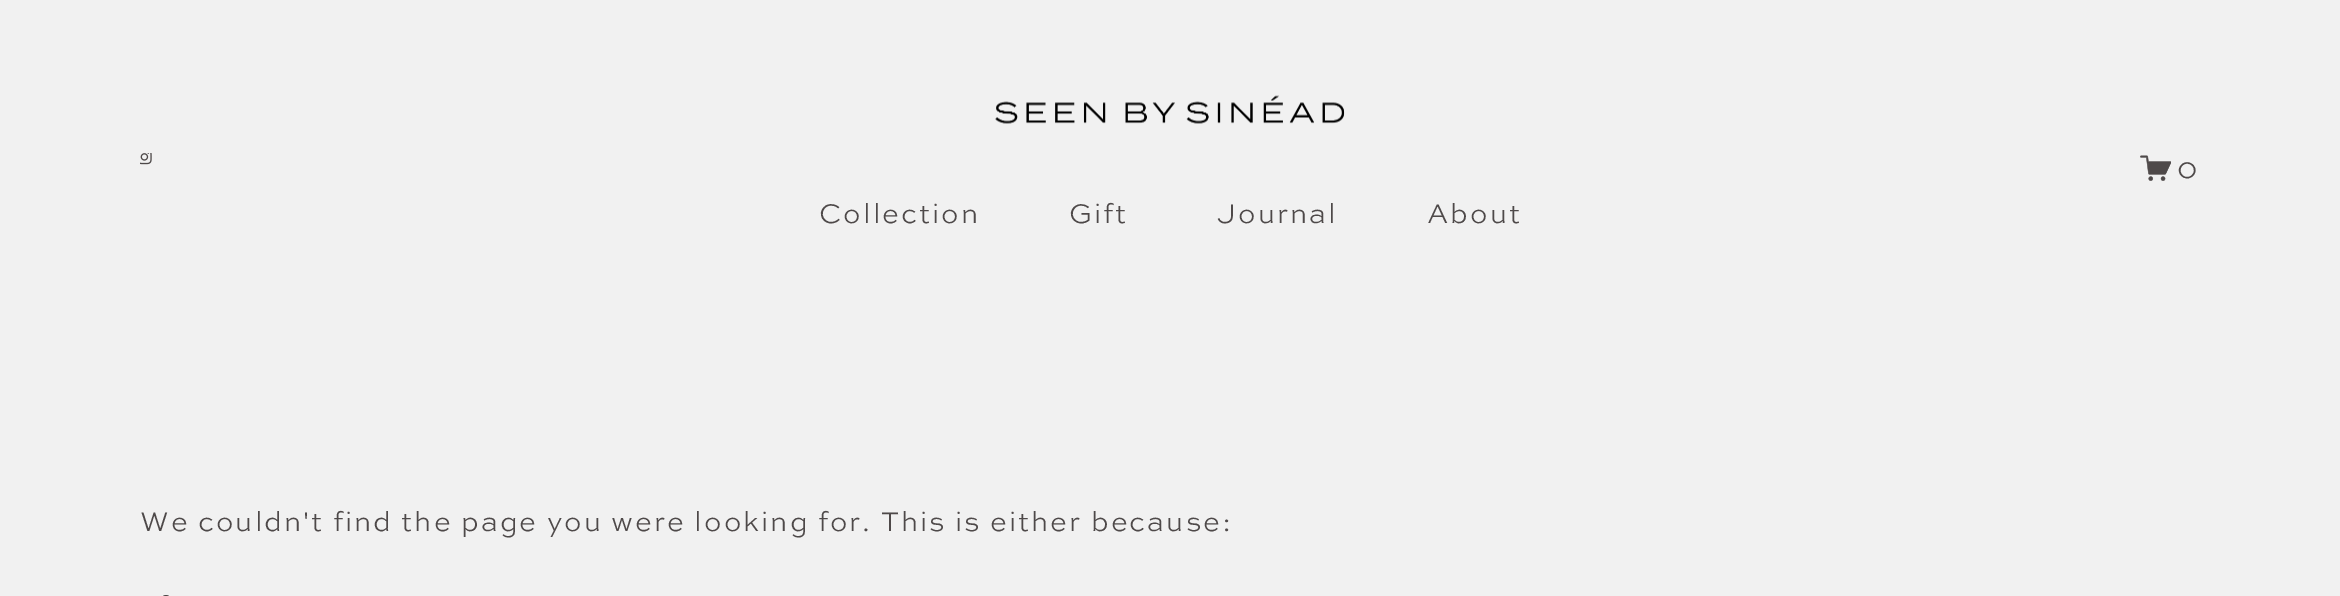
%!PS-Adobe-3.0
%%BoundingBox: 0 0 2340 596
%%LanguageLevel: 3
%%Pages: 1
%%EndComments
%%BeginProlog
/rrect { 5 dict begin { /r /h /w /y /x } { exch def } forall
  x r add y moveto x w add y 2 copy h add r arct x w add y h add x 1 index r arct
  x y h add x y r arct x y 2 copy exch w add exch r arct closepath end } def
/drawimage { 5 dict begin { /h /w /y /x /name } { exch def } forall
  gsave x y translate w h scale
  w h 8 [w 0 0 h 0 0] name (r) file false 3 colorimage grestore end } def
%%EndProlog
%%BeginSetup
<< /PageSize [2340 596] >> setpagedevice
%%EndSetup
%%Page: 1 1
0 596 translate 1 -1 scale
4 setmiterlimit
0.945 setgray
0 0 2340 596 rectfill
(images/1.raw) 140 153 12 12 drawimage
(images/2.raw) 2140 155 31 26 drawimage
(images/3.raw) 995 95 350 29 drawimage
0.306 0.286 0.286 setrgbcolor
161 595 10 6 5 rrect fill
/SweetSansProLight-Light [28.4 0 0 -28.4 0 0] selectfont
2177 178 moveto 2 0 (0) ashow
819 223 moveto 2 0 (Collection) ashow
1069 223 moveto 2 0 (Gift) ashow
1217 223 moveto 2 0 (Journal) ashow
1427 223 moveto 2 0 (About) ashow
140 531 moveto 2 0 (We couldn't find the page you were looking for. This is either because:) ashow
showpage
%%EOF
